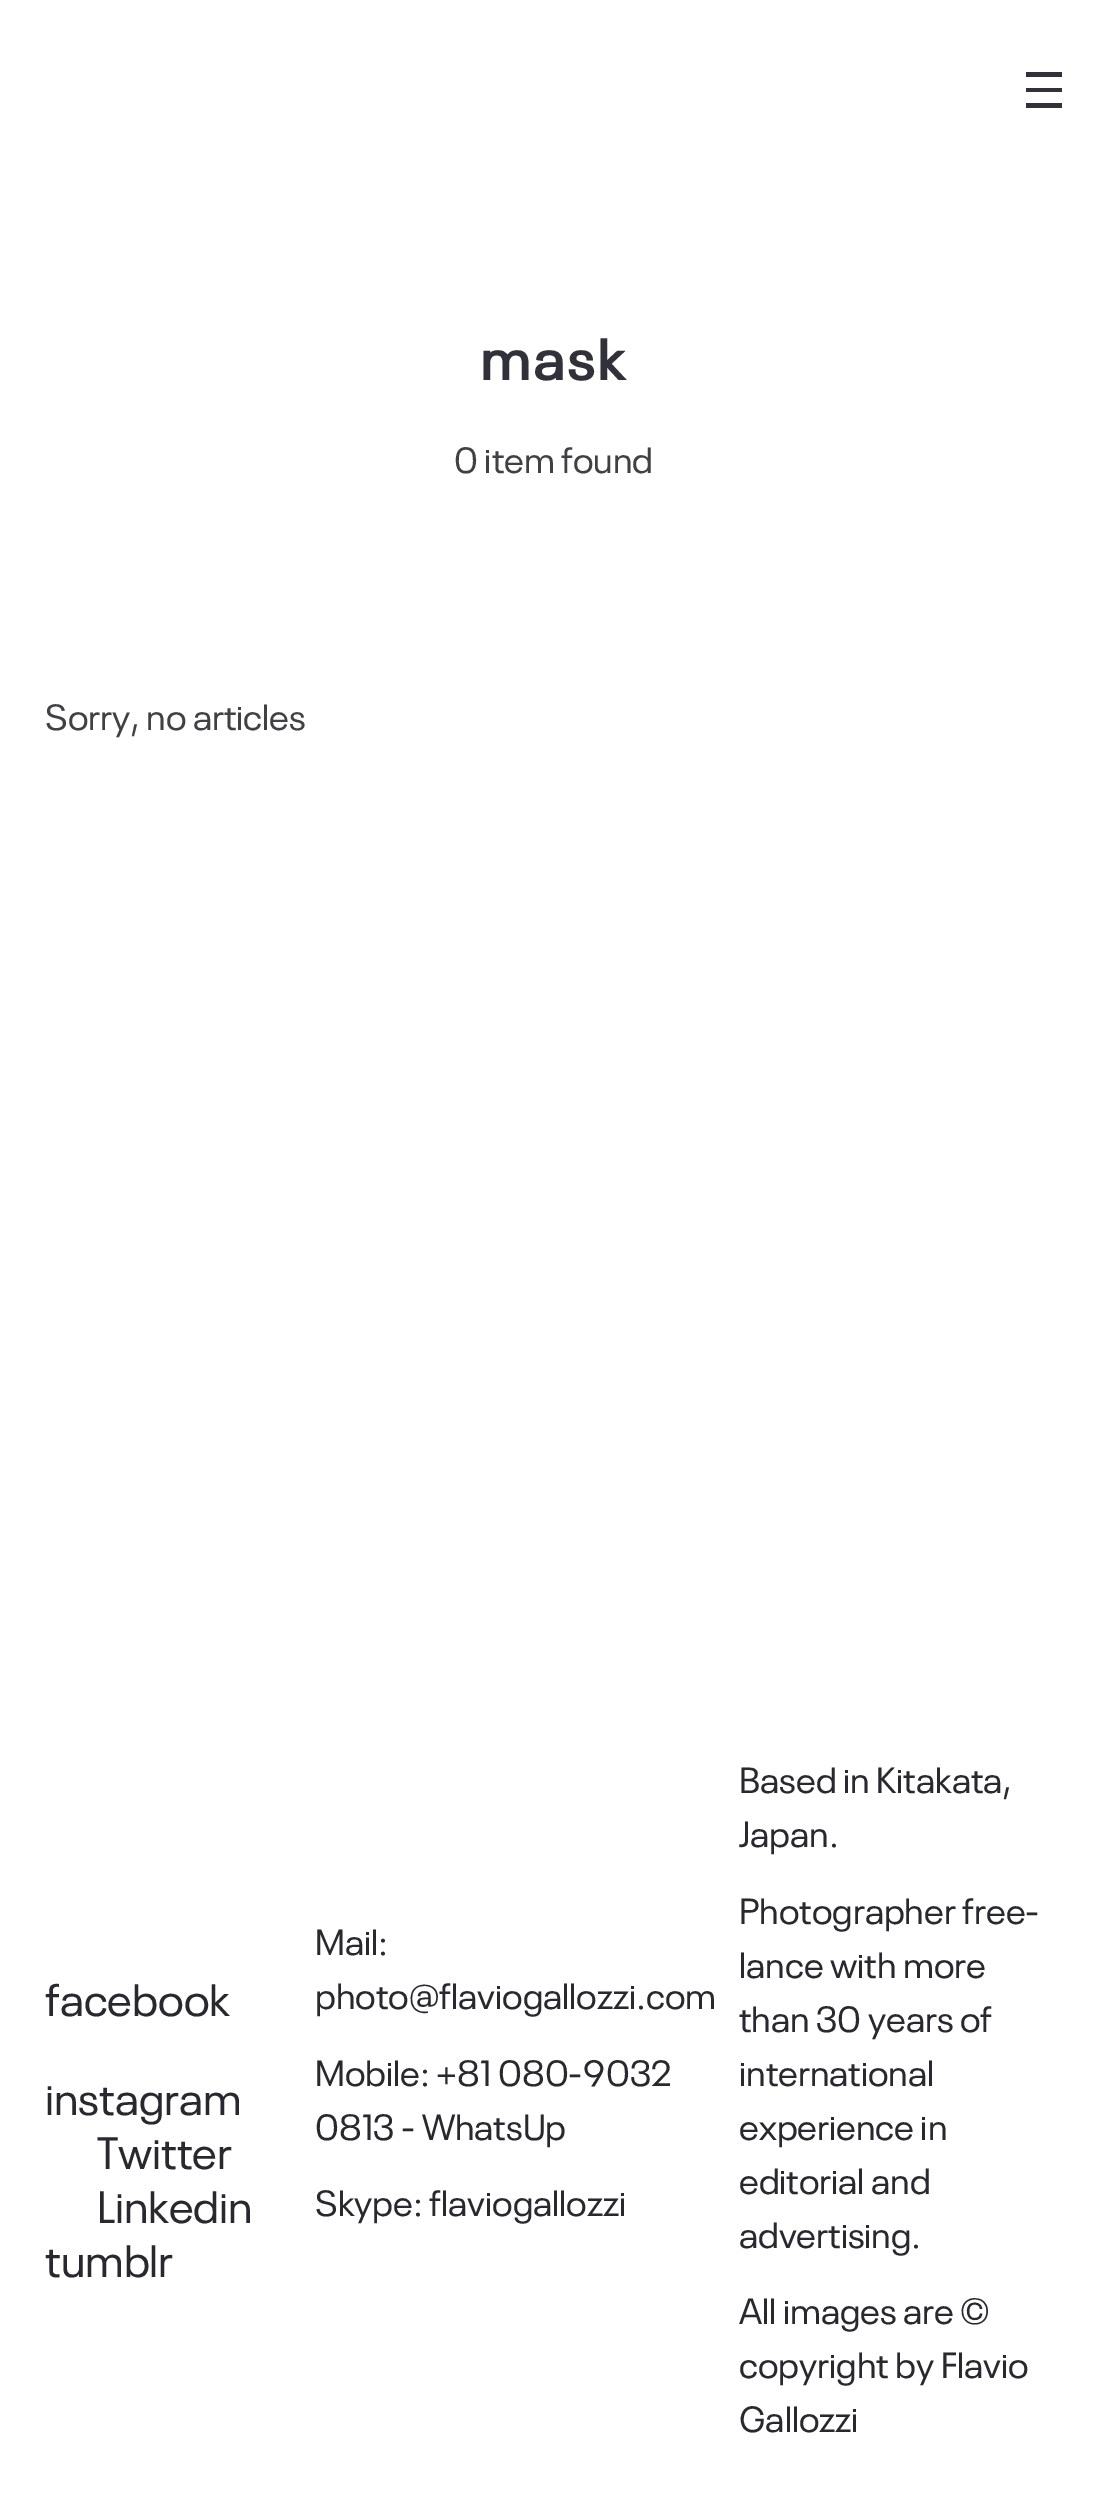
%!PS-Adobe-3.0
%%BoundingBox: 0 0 1106 2509
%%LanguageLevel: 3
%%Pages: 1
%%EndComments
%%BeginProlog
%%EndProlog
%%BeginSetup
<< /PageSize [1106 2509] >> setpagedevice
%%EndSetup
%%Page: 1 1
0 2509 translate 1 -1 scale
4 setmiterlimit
1 setgray
0 0 1106 2509 rectfill
0.192 0.192 0.224 setrgbcolor
1026 72 36 5 rectfill
1026 88 36 4 rectfill
1026 103 36 5 rectfill
/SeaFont-SemiBold [58.5 0 0 -58.5 0 0] selectfont
480 380 moveto 1 0 (mask) ashow
/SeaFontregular-Regular [36 0 0 -36 0 0] selectfont
0.255 0.255 0.271 setrgbcolor
454 473 moveto (0 item found) show
45 730 moveto (Sorry, no articles) show
/SeaFontregular-Regular [45 0 0 -45 0 0] selectfont
0.157 0.157 0.18 setrgbcolor
45 2016 moveto (facebook) show
45 2115 moveto (instagram) show
97 2169 moveto (Twitter) show
97 2223 moveto (Linkedin) show
45 2277 moveto (tumblr) show
/SeaFontregular-Regular [36 0 0 -36 0 0] selectfont
315 1955 moveto (Mail:) show
315 2009 moveto (photo@flaviogallozzi.com) show
315 2086 moveto (Mobile: +81 080-9032) show
315 2140 moveto (0813 - WhatsUp) show
315 2216 moveto (Skype: flaviogallozzi) show
739 1793 moveto (Based in Kitakata,) show
739 1847 moveto (Japan.) show
739 1924 moveto (Photographer free-) show
739 1978 moveto (lance with more) show
739 2032 moveto (than 30 years of) show
739 2086 moveto (international) show
739 2140 moveto (experience in) show
739 2194 moveto (editorial and) show
739 2248 moveto (advertising.) show
739 2324 moveto (All images are ©) show
739 2378 moveto (copyright by Flavio) show
739 2432 moveto (Gallozzi) show
showpage
%%EOF
